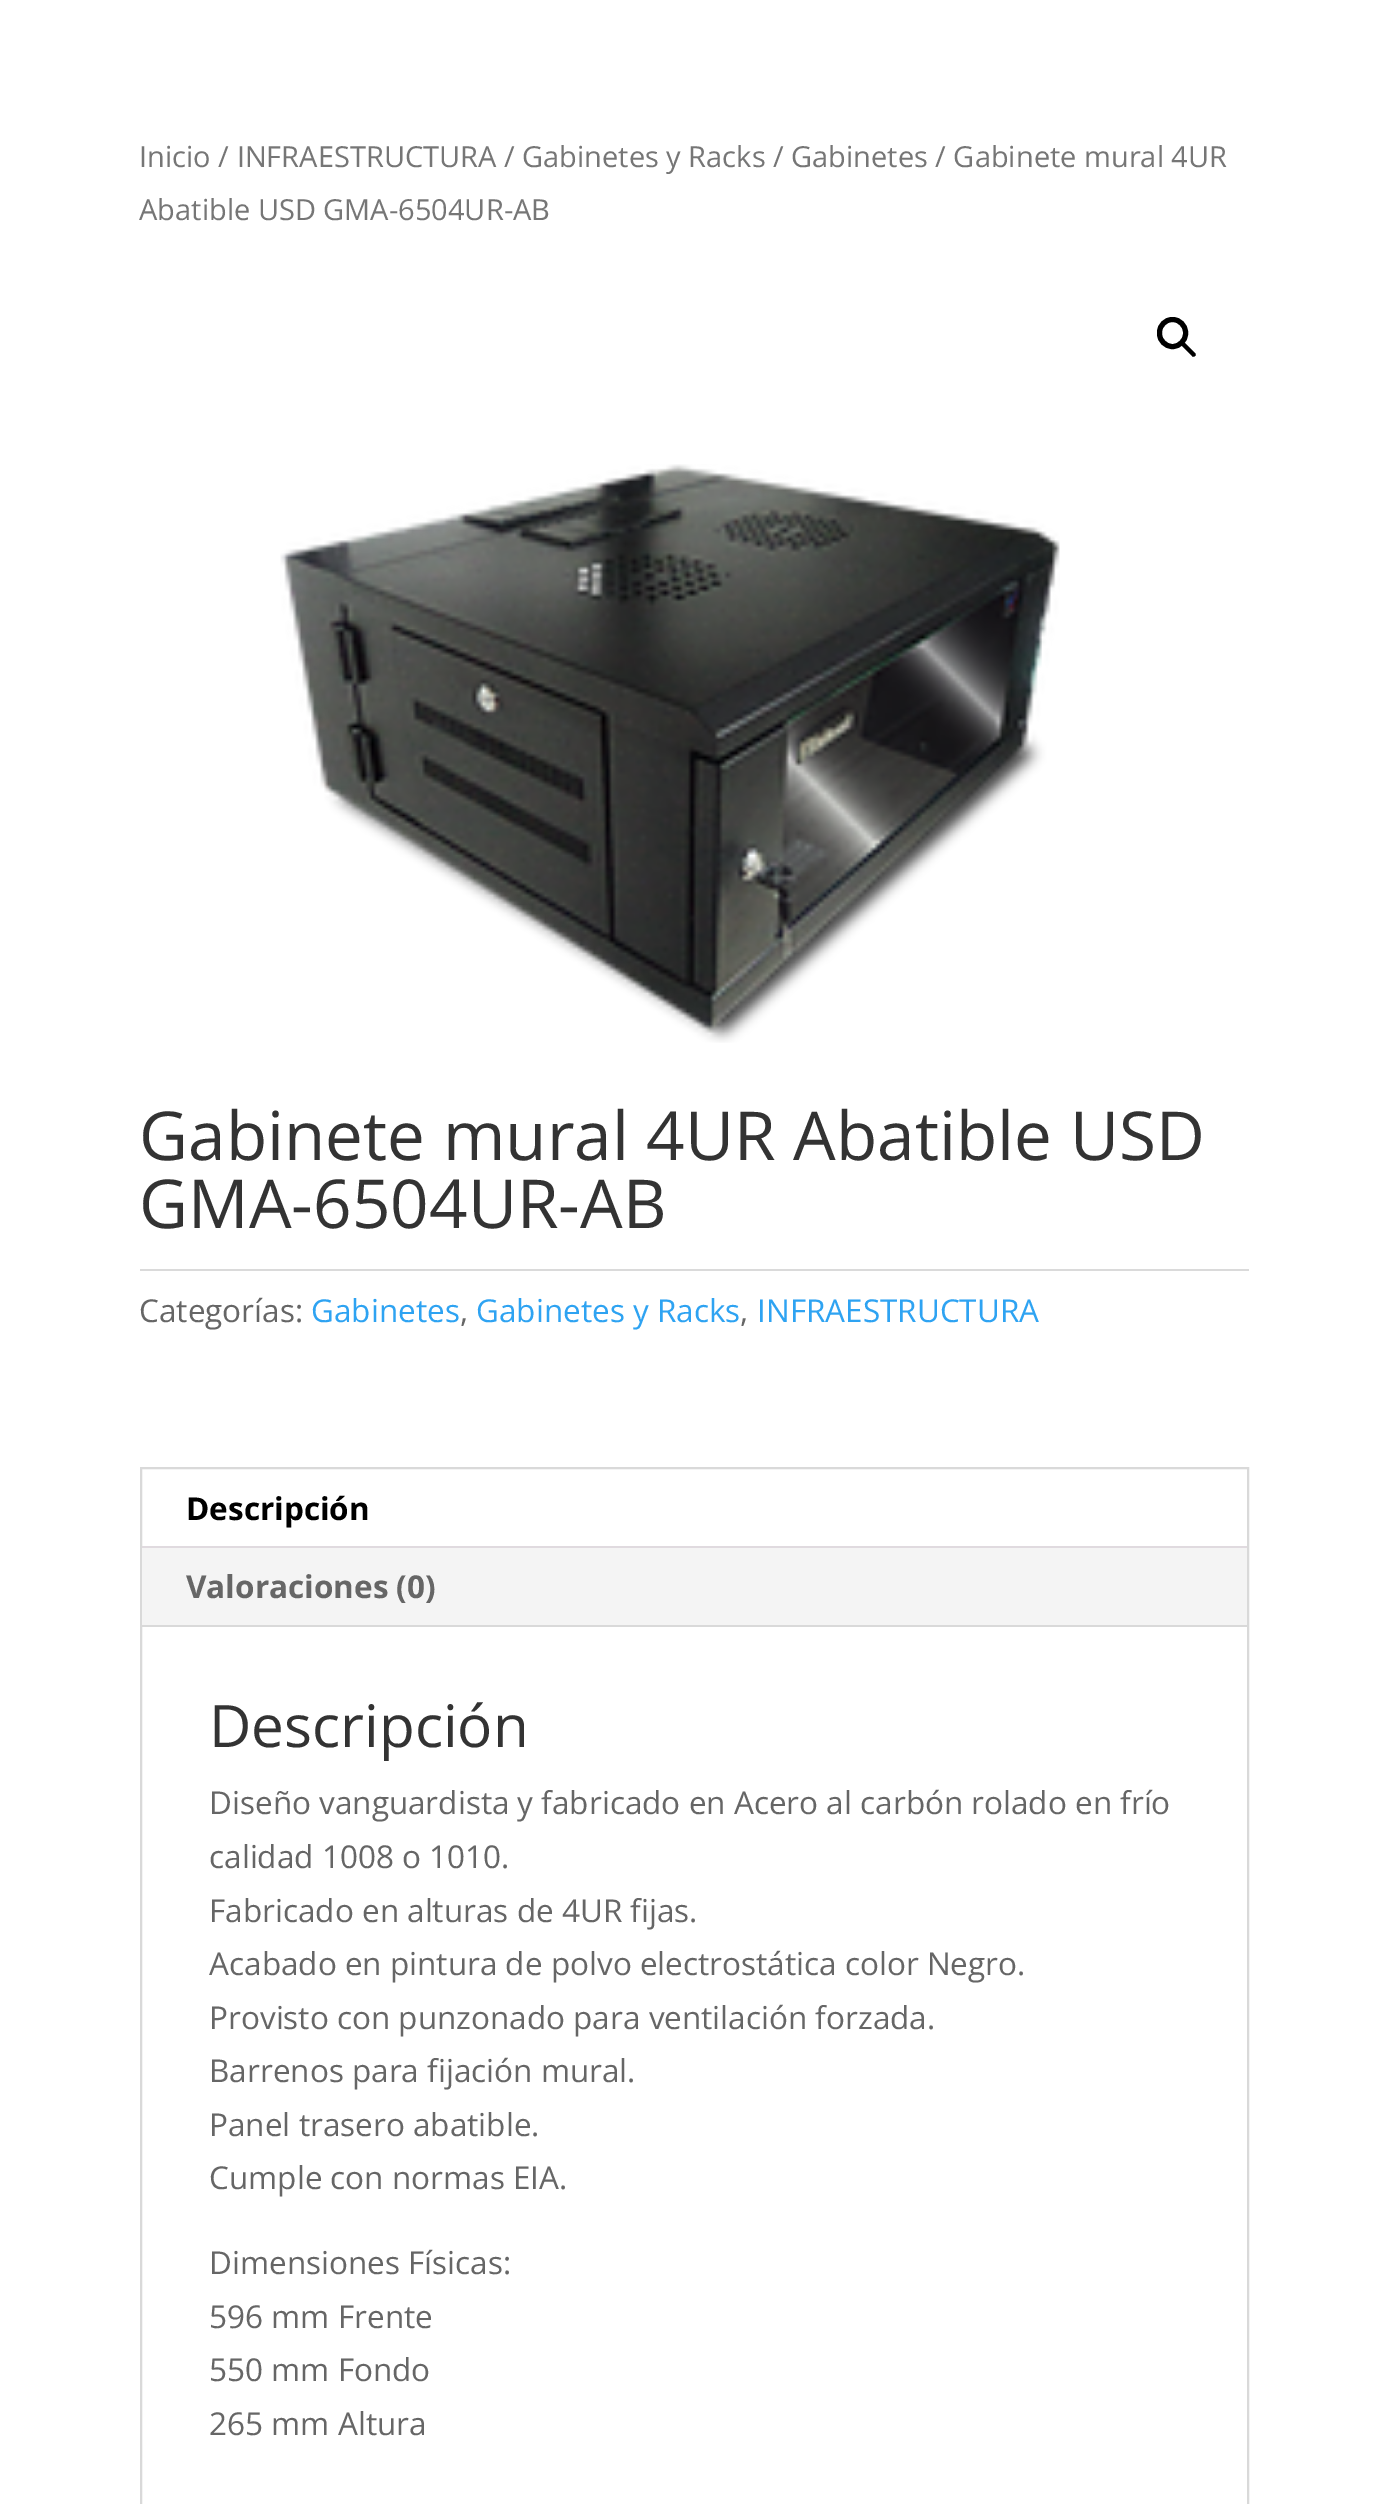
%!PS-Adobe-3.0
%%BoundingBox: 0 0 1387 2504
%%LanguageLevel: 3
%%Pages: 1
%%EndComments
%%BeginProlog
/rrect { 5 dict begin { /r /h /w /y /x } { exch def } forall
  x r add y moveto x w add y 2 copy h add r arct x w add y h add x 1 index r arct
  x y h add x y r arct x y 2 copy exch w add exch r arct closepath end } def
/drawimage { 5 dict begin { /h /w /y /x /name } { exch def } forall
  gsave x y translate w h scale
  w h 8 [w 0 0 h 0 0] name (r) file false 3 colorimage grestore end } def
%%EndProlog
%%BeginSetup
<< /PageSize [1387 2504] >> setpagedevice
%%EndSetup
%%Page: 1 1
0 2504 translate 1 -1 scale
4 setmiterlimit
1 setgray
0 0 1387 2504 rectfill
0 setgray
5 setlinewidth
1159.5 319.5 26 27 13 rrect stroke
newpath 1182.5 343.5 moveto 1183 342.5 1184.5 342.5 1185.5 343.5 curveto 1195 353 lineto 1196 354 1196 355.5 1195 356 curveto 1194 357 1192.5 357 1192 356 curveto 1182.5 346.5 lineto 1181.5 345.5 1181.5 344.5 1182.5 343.5 curveto closepath fill
(images/1.raw) 280 464 780 579 drawimage
0.855 setgray
140 1269 1109 2 rectfill
0.851 setgray
2 setlinewidth
141 1468 1107 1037 rectstroke
0.957 setgray
142 1548 1105 77 rectfill
0.878 0.855 0.875 setrgbcolor
142 1546 1105 2 rectfill
0.851 setgray
142 1625 1105 2 rectfill
/OpenSans-Regular [29 0 0 -29 0 0] selectfont
0.463 setgray
139 167 moveto (Inicio / INFRAESTRUCTURA / Gabinetes y Racks / Gabinetes / Gabinete mural 4UR) show
139 220 moveto (Abatible USD GMA-6504UR-AB) show
/OpenSans-Regular [67.5 0 0 -67.5 0 0] selectfont
0.2 setgray
139 1160 moveto (Gabinete mural 4UR Abatible USD) show
139 1228 moveto (GMA-6504UR-AB) show
/OpenSans-Regular [31.5 0 0 -31.5 0 0] selectfont
0.4 setgray
139 1322 moveto (Categorías:) show
0.18 0.639 0.949 setrgbcolor
311 1322 moveto (Gabinetes) show
0.4 setgray
460 1322 moveto (,) show
0.18 0.639 0.949 setrgbcolor
476 1322 moveto (Gabinetes y Racks) show
0.4 setgray
740 1322 moveto (,) show
0.18 0.639 0.949 setrgbcolor
757 1322 moveto (INFRAESTRUCTURA) show
/OpenSans-Bold [31.5 0 0 -31.5 0 0] selectfont
0 setgray
186 1520 moveto (Descripción) show
0.4 setgray
186 1598 moveto (Valoraciones \(0\)) show
/OpenSans-Regular [58.5 0 0 -58.5 0 0] selectfont
0.2 setgray
209 1747 moveto (Descripción) show
/OpenSans-Regular [31.5 0 0 -31.5 0 0] selectfont
0.4 setgray
209 1814 moveto (Diseño vanguardista y fabricado en Acero al carbón rolado en frío) show
209 1868 moveto (calidad 1008 o 1010.) show
209 1922 moveto (Fabricado en alturas de 4UR fijas.) show
209 1975 moveto (Acabado en pintura de polvo electrostática color Negro.) show
209 2029 moveto (Provisto con punzonado para ventilación forzada.) show
209 2082 moveto (Barrenos para fijación mural.) show
209 2136 moveto (Panel trasero abatible.) show
209 2189 moveto (Cumple con normas EIA.) show
209 2274 moveto (Dimensiones Físicas:) show
209 2328 moveto (596 mm Frente) show
209 2381 moveto (550 mm Fondo) show
209 2435 moveto (265 mm Altura) show
showpage
%%EOF
